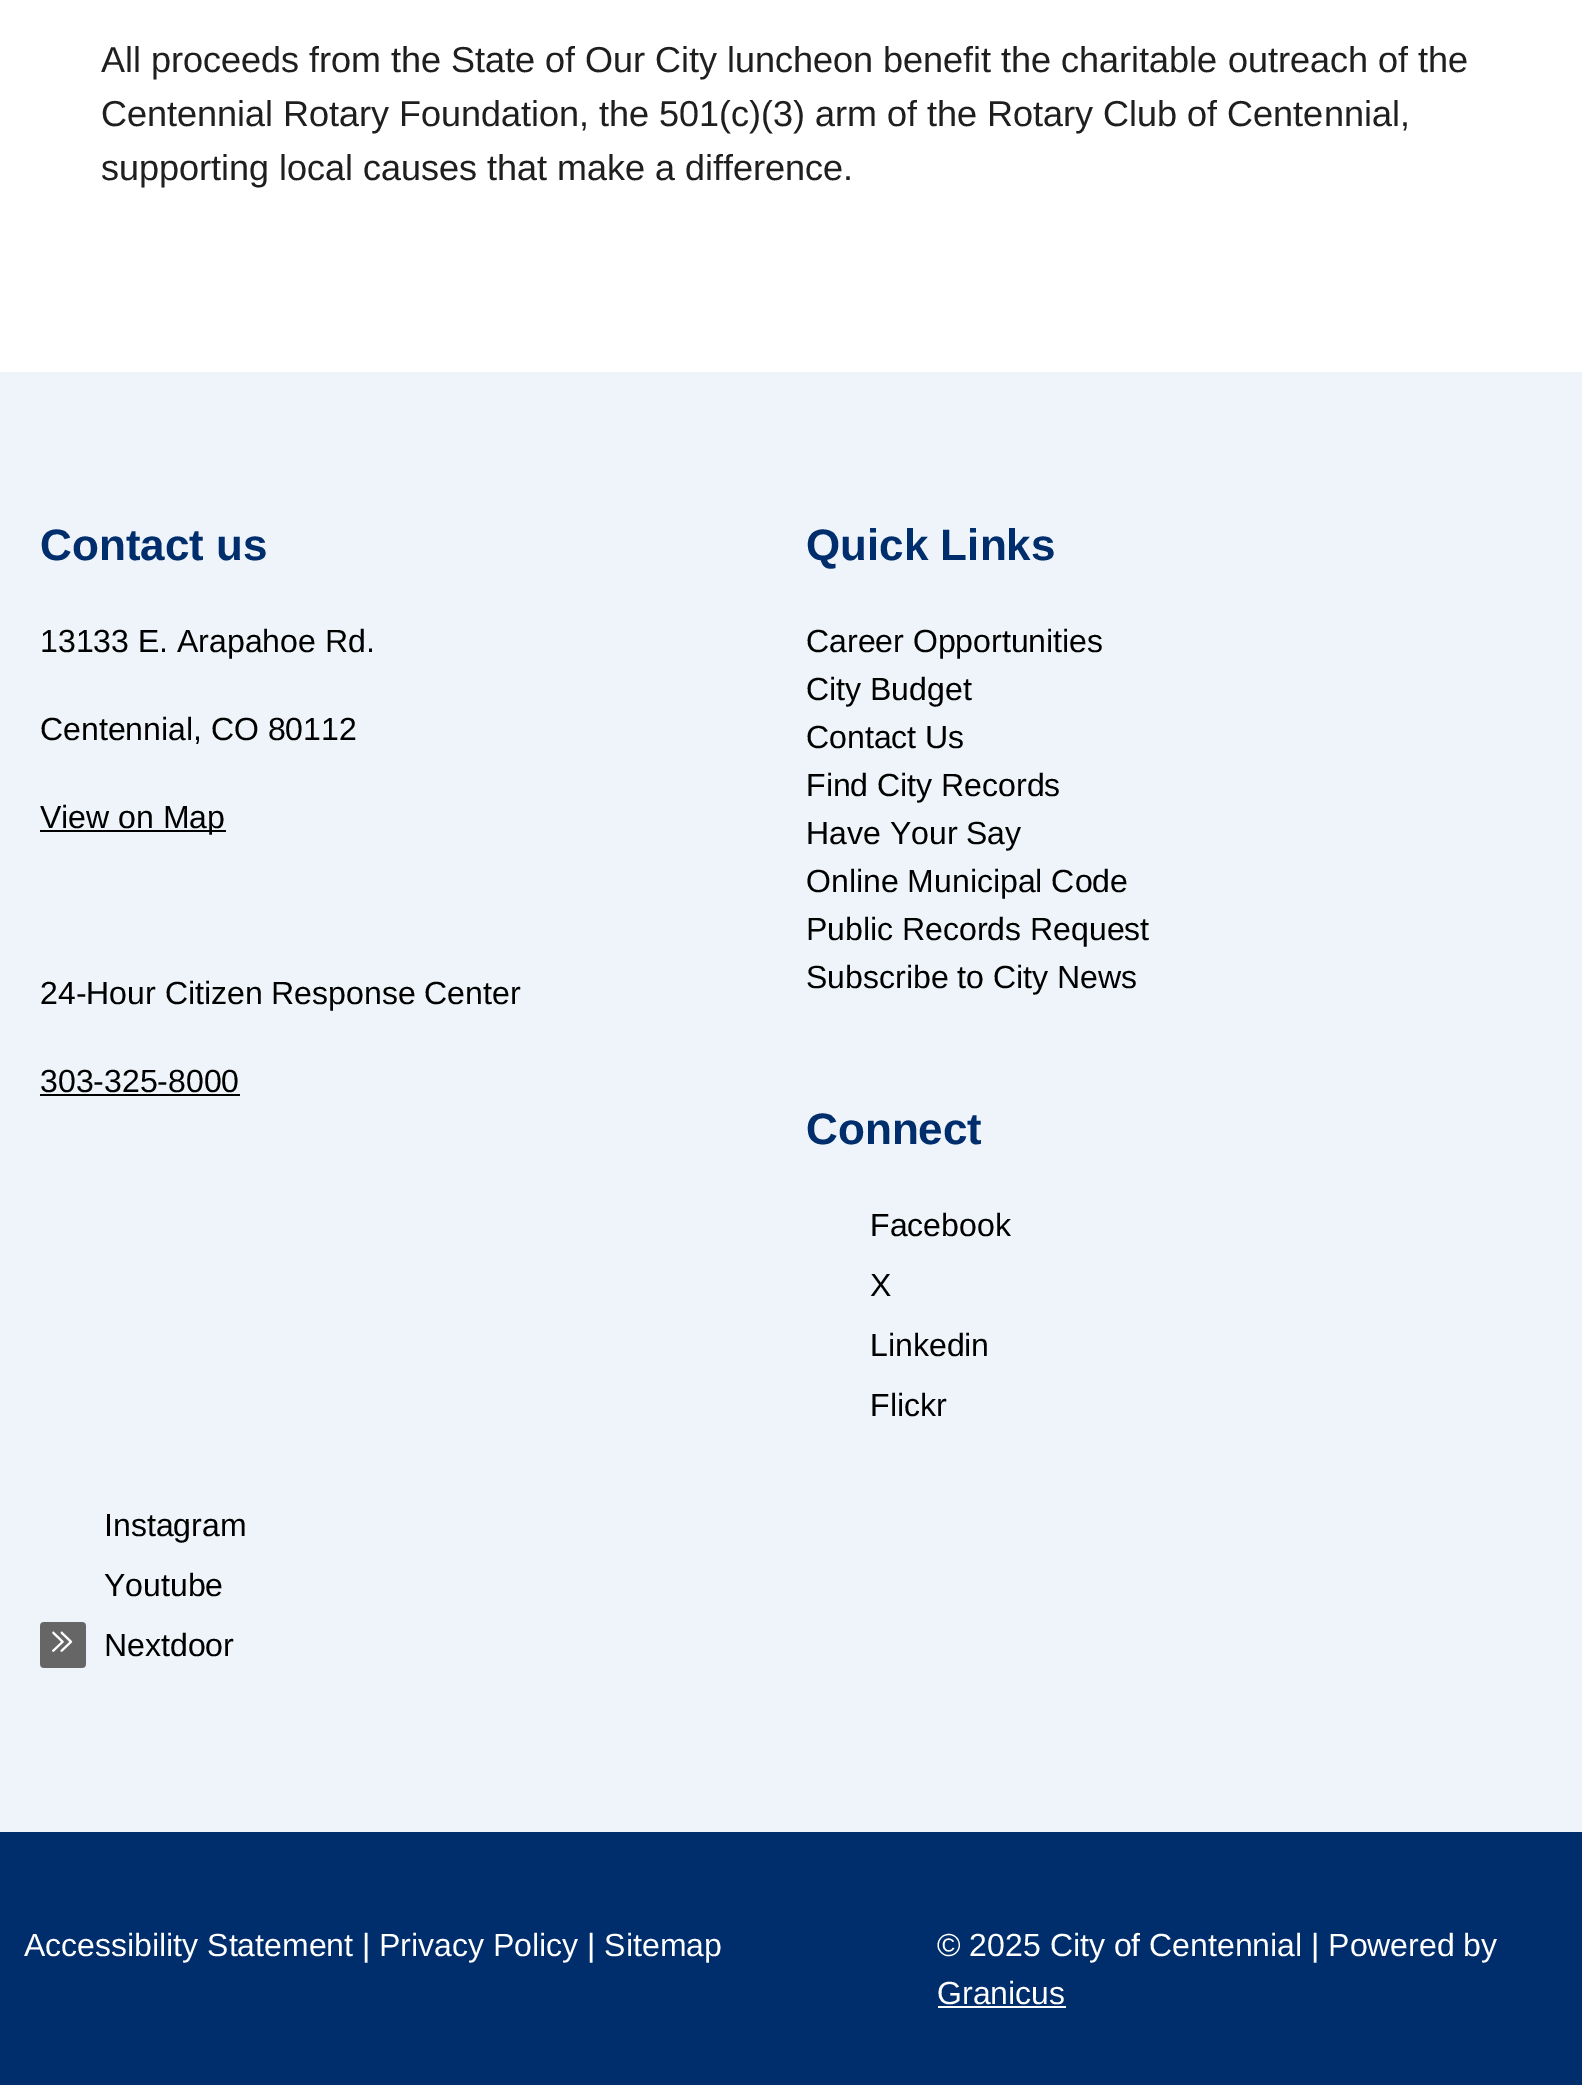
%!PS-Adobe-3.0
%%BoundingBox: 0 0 1582 2085
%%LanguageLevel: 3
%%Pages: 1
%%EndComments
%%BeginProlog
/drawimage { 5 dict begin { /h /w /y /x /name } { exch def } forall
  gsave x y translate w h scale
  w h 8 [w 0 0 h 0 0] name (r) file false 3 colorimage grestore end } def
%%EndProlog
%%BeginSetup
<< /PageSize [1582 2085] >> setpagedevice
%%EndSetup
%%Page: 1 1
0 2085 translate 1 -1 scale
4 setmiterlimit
1 setgray
0 0 1582 2085 rectfill
0.933 0.957 0.976 setrgbcolor
0 372 1582 1460 rectfill
0 setgray
40 830 186 2 rectfill
40 1094 200 2 rectfill
(images/1.raw) 40 1622 46 46 drawimage
0 0.176 0.42 setrgbcolor
0 1832 1582 253 rectfill
1 setgray
938 2006 128 2 rectfill
/LiberationSans-Regular [36 0 0 -36 0 0] selectfont
0.122 setgray
101 72 moveto (All proceeds from the State of Our City luncheon benefit the charitable outreach of the) show
101 126 moveto (Centennial Rotary Foundation, the 501\(c\)\(3\) arm of the Rotary Club of Centennial,) show
101 180 moveto (supporting local causes that make a difference.) show
/LiberationSans-Bold [44 0 0 -44 0 0] selectfont
0 0.18 0.427 setrgbcolor
40 560 moveto (Contact us) show
/LiberationSans-Regular [32 0 0 -32 0 0] selectfont
0 setgray
40 652 moveto (13133 E. Arapahoe Rd.) show
40 740 moveto (Centennial, CO 80112) show
40 828 moveto (View on Map) show
40 1004 moveto (24-Hour Citizen Response Center) show
40 1092 moveto (303-325-8000) show
/LiberationSans-Bold [44 0 0 -44 0 0] selectfont
0 0.18 0.427 setrgbcolor
806 560 moveto (Quick Links) show
/LiberationSans-Regular [32 0 0 -32 0 0] selectfont
0 setgray
806 652 moveto (Career Opportunities) show
806 700 moveto (City Budget) show
806 748 moveto (Contact Us) show
806 796 moveto (Find City Records) show
806 844 moveto (Have Your Say) show
806 892 moveto (Online Municipal Code) show
806 940 moveto (Public Records Request) show
806 988 moveto (Subscribe to City News) show
/LiberationSans-Bold [44 0 0 -44 0 0] selectfont
0 0.18 0.427 setrgbcolor
806 1144 moveto (Connect) show
/LiberationSans-Regular [32 0 0 -32 0 0] selectfont
0 setgray
870 1236 moveto (Facebook) show
870 1296 moveto (X) show
870 1356 moveto (Linkedin) show
870 1416 moveto (Flickr) show
104 1536 moveto (Instagram) show
104 1596 moveto (Youtube) show
104 1656 moveto (Nextdoor) show
1 setgray
24 1956 moveto (Accessibility Statement | Privacy Policy | Sitemap) show
937 1956 moveto (© 2025 City of Centennial | Powered by) show
937 2004 moveto (Granicus) show
showpage
%%EOF
